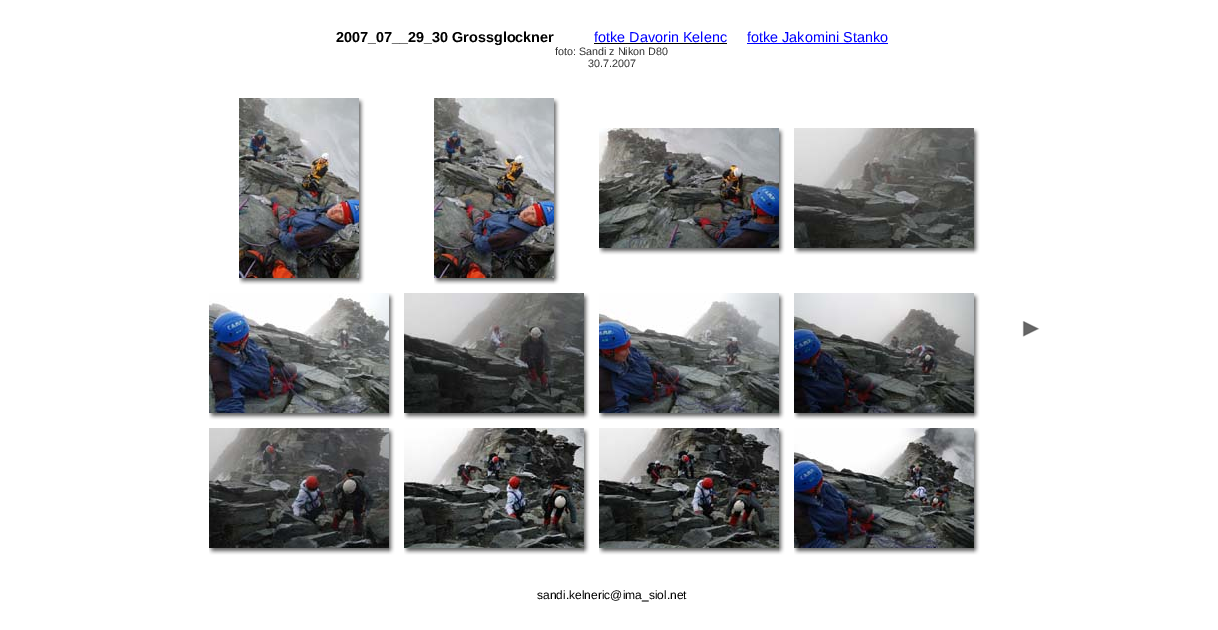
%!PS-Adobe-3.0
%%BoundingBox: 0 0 1218 630
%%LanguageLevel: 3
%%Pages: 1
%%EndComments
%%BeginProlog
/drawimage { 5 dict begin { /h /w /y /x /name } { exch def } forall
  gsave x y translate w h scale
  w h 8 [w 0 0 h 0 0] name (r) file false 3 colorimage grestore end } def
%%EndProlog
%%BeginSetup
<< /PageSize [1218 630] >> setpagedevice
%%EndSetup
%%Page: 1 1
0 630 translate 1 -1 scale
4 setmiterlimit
1 setgray
0 0 1218 630 rectfill
0 setgray
594 43 133 1 rectfill
0 0 1 setrgbcolor
747 43 141 1 rectfill
(images/1.raw) 239 98 120 180 drawimage
(images/2.raw) 359 105 6 173 drawimage
(images/3.raw) 359 98 6 7 drawimage
(images/4.raw) 245 278 114 7 drawimage
(images/5.raw) 239 278 6 7 drawimage
(images/6.raw) 359 278 6 7 drawimage
(images/7.raw) 434 98 120 180 drawimage
(images/2.raw) 554 105 6 173 drawimage
(images/3.raw) 554 98 6 7 drawimage
(images/4.raw) 440 278 114 7 drawimage
(images/5.raw) 434 278 6 7 drawimage
(images/6.raw) 554 278 6 7 drawimage
(images/8.raw) 599 128 180 120 drawimage
(images/9.raw) 779 135 6 113 drawimage
(images/3.raw) 779 128 6 7 drawimage
(images/10.raw) 605 248 174 7 drawimage
(images/5.raw) 599 248 6 7 drawimage
(images/6.raw) 779 248 6 7 drawimage
(images/11.raw) 794 128 180 120 drawimage
(images/9.raw) 974 135 6 113 drawimage
(images/3.raw) 974 128 6 7 drawimage
(images/10.raw) 800 248 174 7 drawimage
(images/5.raw) 794 248 6 7 drawimage
(images/6.raw) 974 248 6 7 drawimage
(images/12.raw) 209 293 180 120 drawimage
(images/9.raw) 389 300 6 113 drawimage
(images/3.raw) 389 293 6 7 drawimage
(images/10.raw) 215 413 174 7 drawimage
(images/5.raw) 209 413 6 7 drawimage
(images/6.raw) 389 413 6 7 drawimage
(images/13.raw) 404 293 180 120 drawimage
(images/9.raw) 584 300 6 113 drawimage
(images/3.raw) 584 293 6 7 drawimage
(images/10.raw) 410 413 174 7 drawimage
(images/5.raw) 404 413 6 7 drawimage
(images/6.raw) 584 413 6 7 drawimage
(images/14.raw) 599 293 180 120 drawimage
(images/9.raw) 779 300 6 113 drawimage
(images/3.raw) 779 293 6 7 drawimage
(images/10.raw) 605 413 174 7 drawimage
(images/5.raw) 599 413 6 7 drawimage
(images/6.raw) 779 413 6 7 drawimage
(images/15.raw) 794 293 180 120 drawimage
(images/9.raw) 974 300 6 113 drawimage
(images/3.raw) 974 293 6 7 drawimage
(images/10.raw) 800 413 174 7 drawimage
(images/5.raw) 794 413 6 7 drawimage
(images/6.raw) 974 413 6 7 drawimage
(images/16.raw) 209 428 180 120 drawimage
(images/9.raw) 389 435 6 113 drawimage
(images/3.raw) 389 428 6 7 drawimage
(images/10.raw) 215 548 174 7 drawimage
(images/5.raw) 209 548 6 7 drawimage
(images/6.raw) 389 548 6 7 drawimage
(images/17.raw) 404 428 180 120 drawimage
(images/9.raw) 584 435 6 113 drawimage
(images/3.raw) 584 428 6 7 drawimage
(images/10.raw) 410 548 174 7 drawimage
(images/5.raw) 404 548 6 7 drawimage
(images/6.raw) 584 548 6 7 drawimage
(images/18.raw) 599 428 180 120 drawimage
(images/9.raw) 779 435 6 113 drawimage
(images/3.raw) 779 428 6 7 drawimage
(images/10.raw) 605 548 174 7 drawimage
(images/5.raw) 599 548 6 7 drawimage
(images/6.raw) 779 548 6 7 drawimage
(images/19.raw) 794 428 180 120 drawimage
(images/9.raw) 974 435 6 113 drawimage
(images/3.raw) 974 428 6 7 drawimage
(images/10.raw) 800 548 174 7 drawimage
(images/5.raw) 794 548 6 7 drawimage
(images/6.raw) 974 548 6 7 drawimage
(images/20.raw) 1022 321 18 16 drawimage
/LiberationSans-Bold [14.4 0 0 -14.4 0 0] selectfont
0 setgray
336 42 moveto (2007_07__29_30 Grossglockner) show
/LiberationSans-Regular [14.4 0 0 -14.4 0 0] selectfont
0 0 1 setrgbcolor
594 42 moveto (fotke Davorin Kelenc) show
747 42 moveto (fotke Jakomini Stanko) show
/LiberationSans-Regular [10.75 0 0 -10.75 0 0] selectfont
0.2 setgray
555 55 moveto (foto: Sandi z Nikon D80) show
588 67 moveto (30.7.2007) show
/LiberationSans-Regular [12 0 0 -12 0 0] selectfont
0 setgray
537 599 moveto (sandi.kelneric@ima_siol.net) show
showpage
%%EOF
